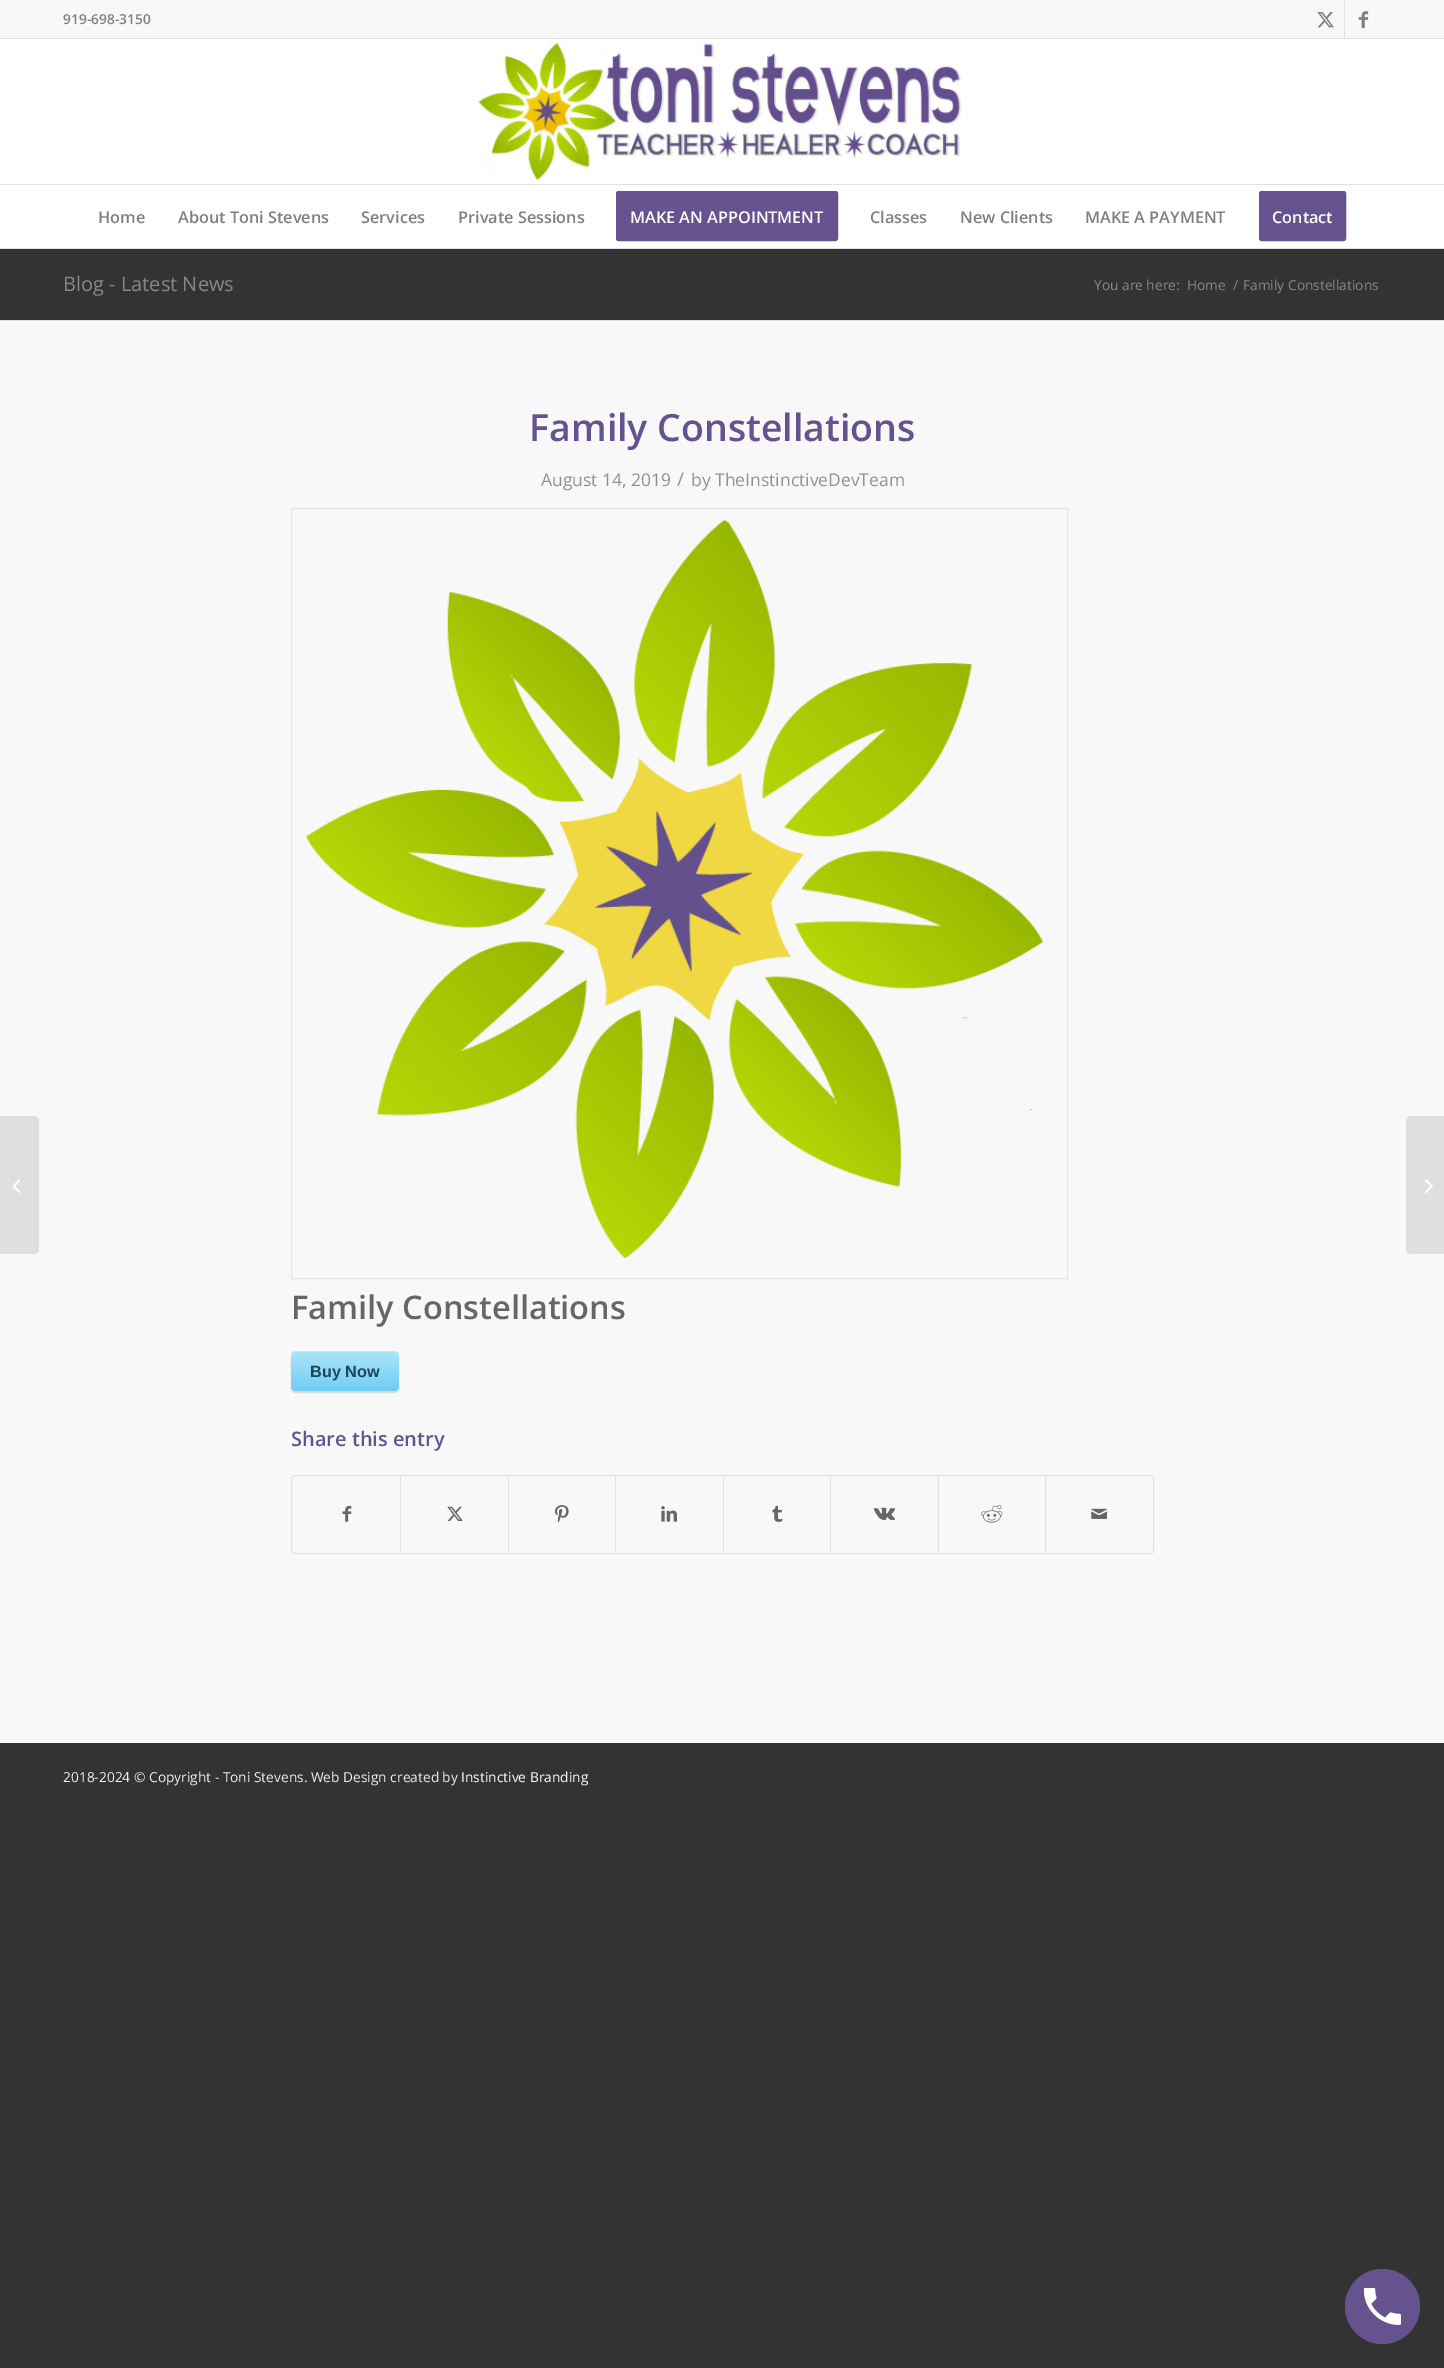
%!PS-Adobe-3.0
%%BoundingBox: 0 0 1444 2368
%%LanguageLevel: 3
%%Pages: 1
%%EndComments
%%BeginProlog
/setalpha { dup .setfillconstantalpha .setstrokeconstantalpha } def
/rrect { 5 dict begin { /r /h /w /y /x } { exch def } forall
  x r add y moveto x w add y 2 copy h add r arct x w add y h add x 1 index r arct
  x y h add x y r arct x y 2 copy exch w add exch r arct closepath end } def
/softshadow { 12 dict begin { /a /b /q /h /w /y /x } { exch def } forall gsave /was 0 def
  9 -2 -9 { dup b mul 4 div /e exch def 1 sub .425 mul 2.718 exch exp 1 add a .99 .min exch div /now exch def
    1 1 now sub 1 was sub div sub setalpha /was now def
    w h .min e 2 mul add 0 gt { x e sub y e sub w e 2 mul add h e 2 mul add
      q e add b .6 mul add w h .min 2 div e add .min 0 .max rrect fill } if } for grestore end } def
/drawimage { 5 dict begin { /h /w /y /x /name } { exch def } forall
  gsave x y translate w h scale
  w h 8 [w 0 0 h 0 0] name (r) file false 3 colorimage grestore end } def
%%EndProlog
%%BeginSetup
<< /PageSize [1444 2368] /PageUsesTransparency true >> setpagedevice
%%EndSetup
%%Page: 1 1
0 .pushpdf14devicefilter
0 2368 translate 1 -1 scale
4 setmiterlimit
0.2 setgray
0 0 1444 2368 rectfill
0.973 setgray
0 0 1444 38 rectfill
0.882 setgray
0 38 1444 1 rectfill
1344 0 1 38 rectfill
(images/1.raw) 1317 12 17 16 drawimage
(images/2.raw) 1358 11 11 18 drawimage
0 248 1444 1 rectfill
1 setgray
0 39 1444 209 rectfill
(images/3.raw) 477 42 485 140 drawimage
0.882 setgray
0 184 1444 1 rectfill
0.4 0.322 0.561 setrgbcolor
617.5 192.5 219 47 1 rrect gsave fill grestore
3 setlinewidth
stroke
1260.5 192.5 84 47 1 rrect gsave fill grestore
stroke
0.973 setgray
0 321 1444 1422 rectfill
0.875 setgray
newpath 0 1116 moveto 34 1116 lineto 37 1116 39 1118 39 1121 curveto 39 1249 lineto 39 1252 37 1254 34 1254 curveto 0 1254 lineto closepath fill
(images/4.raw) 13 1179 7 14 drawimage
0.882 setgray
0 320 1444 1 rectfill
0.91 0.894 0.89 setrgbcolor
1 setlinewidth
291.5 508.5 776 770 rectstroke
(images/5.raw) 305 519 739 740 drawimage
0.839 setgray
291 1353 108 40 5 0.5 1 softshadow
gsave 291 1351 108 40 5 rrect clip newpath
<< /ShadingType 2 /ColorSpace /DeviceRGB /Coords [291 1351 291 1391] /Extend [true true] /Function << /FunctionType 2 /Domain [0 1] /C0 [0.671 0.894 0.973] /C1 [0.435 0.808 0.953] /N 1 >> >> shfill grestore
0.753 0.922 0.98 setrgbcolor
newpath 296 1352 moveto 394 1352 lineto 397 1352 399 1355 399 1358 curveto 399 1356 lineto 399 1353 397 1351 394 1351 curveto 296 1351 lineto 293 1351 291 1353 291 1356 curveto 291 1358 lineto 291 1355 293 1352 296 1352 curveto closepath fill
0.882 setgray
291.5 1475.5 862 78 3.5 rrect stroke
(images/6.raw) 342 1506 10 16 drawimage
400 1476 1 77 rectfill
(images/7.raw) 447 1506 16 15 drawimage
508 1476 1 77 rectfill
(images/8.raw) 555 1505 14 18 drawimage
615 1476 1 77 rectfill
(images/9.raw) 661 1506 16 16 drawimage
723 1476 1 77 rectfill
(images/10.raw) 772 1505 11 17 drawimage
830 1476 1 77 rectfill
(images/11.raw) 873 1507 23 13 drawimage
938 1476 1 77 rectfill
(images/12.raw) 981 1505 22 18 drawimage
1045 1476 1 77 rectfill
(images/13.raw) 1091 1508 16 11 drawimage
0.875 setgray
newpath 1411 1116 moveto 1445 1116 lineto 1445 1254 lineto 1411 1254 lineto 1408 1254 1406 1252 1406 1249 curveto 1406 1121 lineto 1406 1118 1408 1116 1411 1116 curveto closepath fill
(images/14.raw) 1425 1179 8 14 drawimage
0.4 0.322 0.561 setrgbcolor
newpath 1382.5 2306.5 37.5 0 360 arc closepath fill
(images/15.raw) 1364 2288 37 37 drawimage
/OpenSans-SemiBold [13.75 0 0 -13.75 0 0] selectfont
0.502 setgray
63 24 moveto (919-698-3150) show
/OpenSans-SemiBold [16.25 0 0 -16.25 0 0] selectfont
98 223 moveto (Home) show
178 223 moveto (About Toni Stevens) show
361 223 moveto (Services) show
458 223 moveto (Private Sessions) show
1 setgray
630 223 moveto (MAKE AN APPOINTMENT) show
0.502 setgray
870 223 moveto (Classes) show
960 223 moveto (New Clients) show
1085 223 moveto (MAKE A PAYMENT) show
1 setgray
1272 223 moveto (Contact) show
/OpenSans-Regular [20 0 0 -20 0 0] selectfont
0.533 setgray
63 291 moveto (Blog - Latest News) show
/OpenSans-Regular [13.75 0 0 -13.75 0 0] selectfont
1094 290 moveto (You are here:) show
1187 290 moveto (Home) show
1233 290 moveto (/) show
1243 290 moveto (Family Constellations) show
/OpenSans-SemiBold [37.5 0 0 -37.5 0 0] selectfont
0.4 0.322 0.561 setrgbcolor
529 441 moveto (Family Constellations) show
/OpenSans-Regular [17.5 0 0 -17.5 0 0] selectfont
0.569 setgray
541 486 moveto (August 14, 2019) show
/OpenSans-Regular [19 0 0 -19 0 0] selectfont
677 486 moveto (/) show
/OpenSans-Regular [17.5 0 0 -17.5 0 0] selectfont
691 486 moveto (by TheInstinctiveDevTeam) show
/OpenSans-SemiBold [32.5 0 0 -32.5 0 0] selectfont
0.4 setgray
291 1319 moveto (Family Constellations) show
/LiberationSans-Bold [16.25 0 0 -16.25 0 0] selectfont
0.118 0.275 0.341 setrgbcolor
310 1377 moveto (Buy Now) show
/OpenSans-SemiBold [20 0 0 -20 0 0] selectfont
0.4 0.322 0.561 setrgbcolor
291 1446 moveto (Share this entry) show
/OpenSans-Regular [13.75 0 0 -13.75 0 0] selectfont
0.933 setgray
63 1782 moveto (2018-2024 © Copyright - Toni Stevens. Web Design created by) show
1 setgray
461 1782 moveto (Instinctive Branding) show
.poppdf14devicefilter showpage
%%EOF
